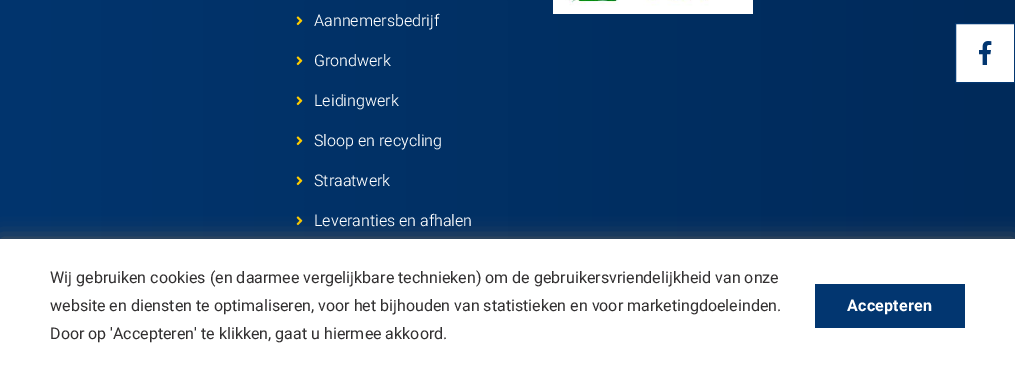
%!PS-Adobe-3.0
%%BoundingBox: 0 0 1015 373
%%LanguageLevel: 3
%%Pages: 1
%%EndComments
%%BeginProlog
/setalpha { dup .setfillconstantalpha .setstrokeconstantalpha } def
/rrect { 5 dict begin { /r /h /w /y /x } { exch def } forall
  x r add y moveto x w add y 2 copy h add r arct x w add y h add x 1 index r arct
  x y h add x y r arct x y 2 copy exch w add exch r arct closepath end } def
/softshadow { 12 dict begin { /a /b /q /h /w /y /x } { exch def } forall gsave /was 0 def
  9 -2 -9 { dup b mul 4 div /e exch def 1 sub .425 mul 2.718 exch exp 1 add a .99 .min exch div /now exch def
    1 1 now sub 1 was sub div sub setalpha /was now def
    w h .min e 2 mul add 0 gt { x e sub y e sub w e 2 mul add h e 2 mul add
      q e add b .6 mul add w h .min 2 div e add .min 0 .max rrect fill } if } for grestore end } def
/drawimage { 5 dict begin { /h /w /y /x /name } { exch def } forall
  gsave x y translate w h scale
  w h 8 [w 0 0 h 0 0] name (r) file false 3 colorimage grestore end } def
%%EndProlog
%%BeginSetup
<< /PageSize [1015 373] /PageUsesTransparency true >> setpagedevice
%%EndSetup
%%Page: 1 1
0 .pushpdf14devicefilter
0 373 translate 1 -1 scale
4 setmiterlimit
1 setgray
0 0 1015 373 rectfill
gsave newpath 0 0 moveto 1015 0 lineto 1015 239 lineto 0 239 lineto closepath clip newpath
<< /ShadingType 2 /ColorSpace /DeviceRGB /Coords [0 0.5 1015 0.5] /Extend [true true] /Function << /FunctionType 2 /Domain [0 1] /C0 [0.008 0.208 0.431] /C1 [0 0.165 0.353] /N 1 >> >> shfill grestore
(images/1.raw) 553 0 200 14 drawimage
(images/2.raw) 296 16 7 10 drawimage
(images/2.raw) 296 56 7 10 drawimage
(images/2.raw) 296 96 7 10 drawimage
(images/2.raw) 296 136 7 10 drawimage
(images/2.raw) 296 176 7 10 drawimage
(images/2.raw) 296 216 7 10 drawimage
newpath 955.5 23.5 moveto 1014.5 23.5 lineto 1014.5 82.5 lineto 955.5 82.5 lineto closepath gsave fill grestore
0.008 0.212 0.439 setrgbcolor
stroke
(images/3.raw) 979 41 13 24 drawimage
0.337 setgray
0 239 1015 134 0 10 1 softshadow
1 setgray
0 239 1015 134 rectfill
0.008 0.212 0.439 setrgbcolor
815 284 150 44 rectfill
/Heebo-Light [16 0 0 -16 0 0] selectfont
1 setgray
314 26 moveto (Aannemersbedrijf) show
314 66 moveto (Grondwerk) show
314 106 moveto (Leidingwerk) show
314 146 moveto (Sloop en recycling) show
314 186 moveto (Straatwerk) show
314 226 moveto (Leveranties en afhalen) show
/Heebo-Regular [16 0 0 -16 0 0] selectfont
0.196 0.188 0.192 setrgbcolor
50 283 moveto (Wij gebruiken cookies \(en daarmee vergelijkbare technieken\) om de gebruikersvriendelijkheid van onze) show
50 311 moveto (website en diensten te optimaliseren, voor het bijhouden van statistieken en voor marketingdoeleinden.) show
50 339 moveto (Door op 'Accepteren' te klikken, gaat u hiermee akkoord.) show
/Heebo-Bold [16 0 0 -16 0 0] selectfont
1 setgray
847 311 moveto 0.25 0 (Accepteren) ashow
.poppdf14devicefilter showpage
%%EOF
